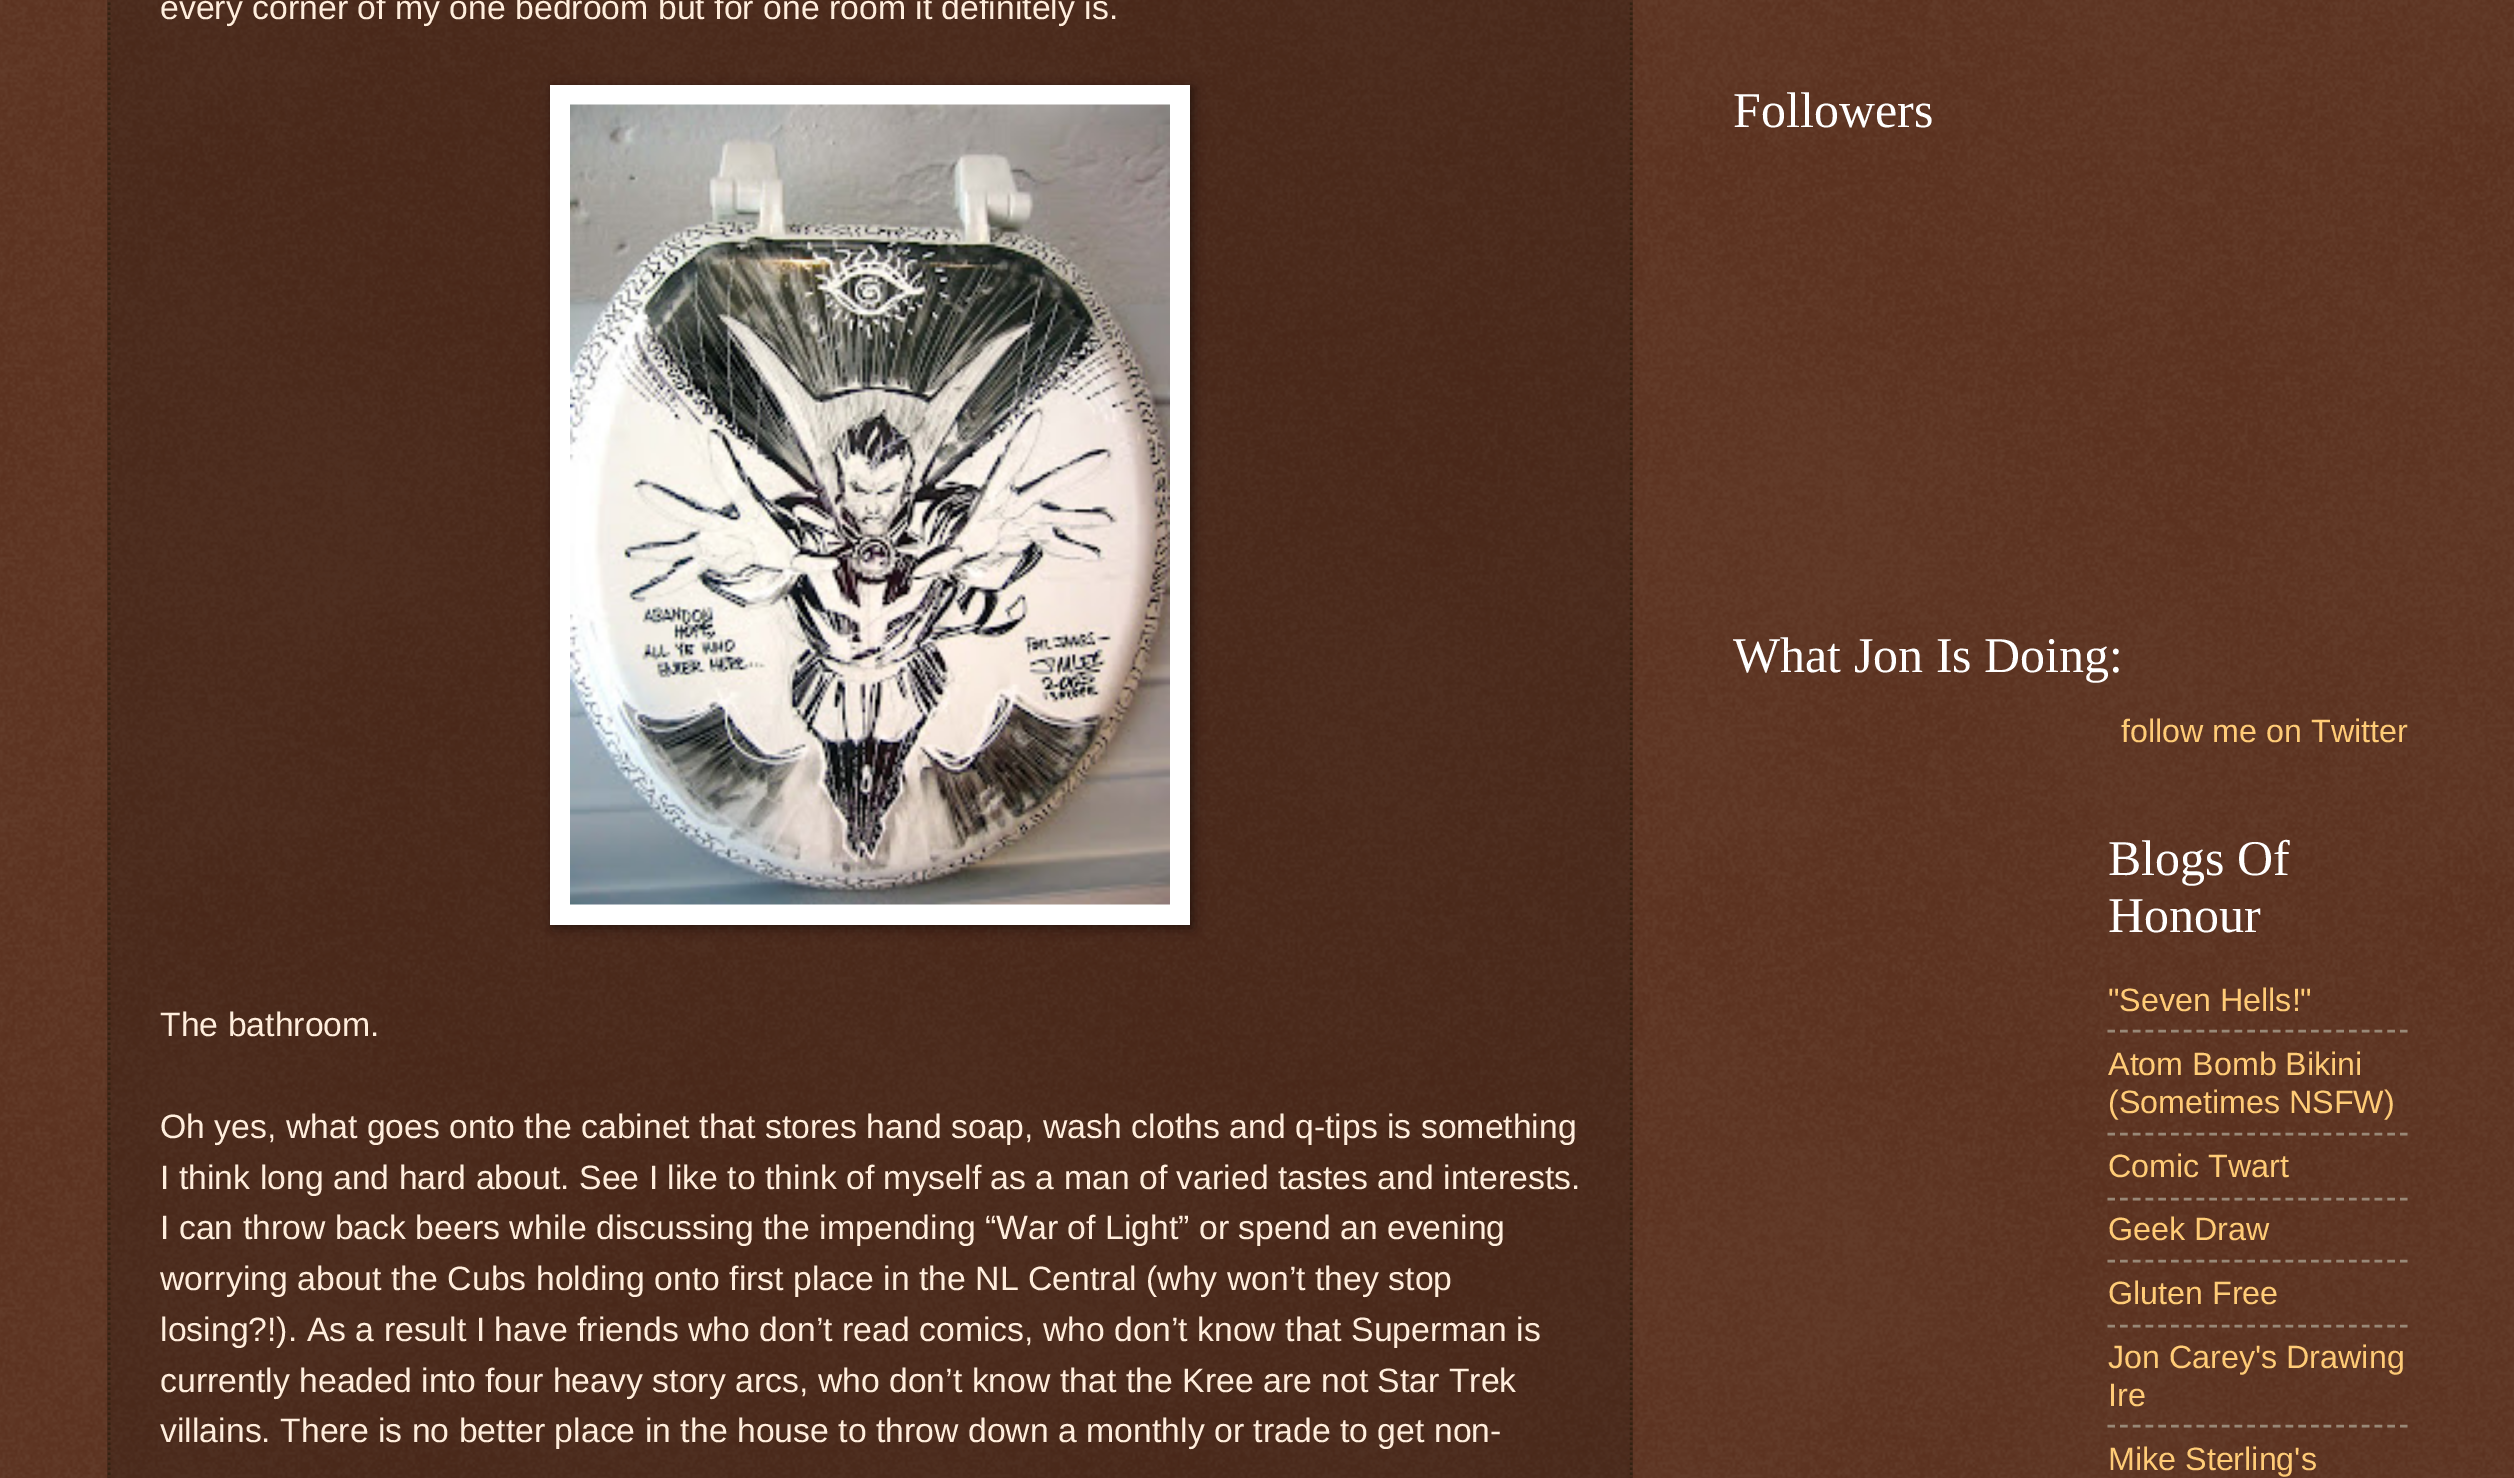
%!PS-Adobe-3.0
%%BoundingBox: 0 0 2514 1478
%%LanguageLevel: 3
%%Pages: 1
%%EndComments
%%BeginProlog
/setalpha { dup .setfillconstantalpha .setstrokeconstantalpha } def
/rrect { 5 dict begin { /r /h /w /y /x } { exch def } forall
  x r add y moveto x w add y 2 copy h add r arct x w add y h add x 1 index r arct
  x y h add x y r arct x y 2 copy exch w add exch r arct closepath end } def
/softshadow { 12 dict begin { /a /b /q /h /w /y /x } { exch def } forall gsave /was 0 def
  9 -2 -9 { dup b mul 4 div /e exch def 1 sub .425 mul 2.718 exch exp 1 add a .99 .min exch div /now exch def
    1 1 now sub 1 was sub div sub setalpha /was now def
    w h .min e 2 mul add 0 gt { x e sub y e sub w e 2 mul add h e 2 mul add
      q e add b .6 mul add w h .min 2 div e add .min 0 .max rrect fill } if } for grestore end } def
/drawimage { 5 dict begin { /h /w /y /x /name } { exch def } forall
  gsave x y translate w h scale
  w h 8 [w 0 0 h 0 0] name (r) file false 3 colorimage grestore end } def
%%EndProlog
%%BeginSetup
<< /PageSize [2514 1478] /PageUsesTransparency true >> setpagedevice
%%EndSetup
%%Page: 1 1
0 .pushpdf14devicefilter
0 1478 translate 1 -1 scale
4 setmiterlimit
0.267 0.082 0 setrgbcolor
0 0 2514 1478 rectfill
(images/1.raw) 0 0 2514 1478 drawimage
0.2 setalpha
0 setgray
107 0 1526 1478 rectfill
1 setalpha
0.2 0.133 0.067 setrgbcolor
2.5 setlinewidth
[2.5 2.5] 0 setdash
newpath 1631 -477.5 moveto 1631 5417.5 lineto stroke
newpath 109 -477.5 moveto 109 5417.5 lineto stroke
0 setgray
553 88 640 840 0 6 0.5 softshadow
1 setgray
550 85 640 840 rectfill
(images/2.raw) 570 104 600 801 drawimage
0.6 0.533 0.467 setrgbcolor
[7.5 5.22] 0 setdash
newpath 2107.5 1031 moveto 2407.5 1031 lineto stroke
newpath 2107.5 1134 moveto 2407.5 1134 lineto stroke
newpath 2107.5 1199 moveto 2407.5 1199 lineto stroke
newpath 2107.5 1261 moveto 2407.5 1261 lineto stroke
newpath 2107.5 1326 moveto 2407.5 1326 lineto stroke
newpath 2107.5 1426 moveto 2407.5 1426 lineto stroke
/LiberationSans-Regular [33.8 0 0 -33.8 0 0] selectfont
1 0.933 0.867 setrgbcolor
160 19 moveto (every corner of my one bedroom but for one room it definitely is.) show
160 1036 moveto (The bathroom.) show
160 1138 moveto (Oh yes, what goes onto the cabinet that stores hand soap, wash cloths and q-tips is something) show
160 1189 moveto (I think long and hard about. See I like to think of myself as a man of varied tastes and interests.) show
160 1239 moveto (I can throw back beers while discussing the impending “War of Light” or spend an evening) show
160 1290 moveto (worrying about the Cubs holding onto first place in the NL Central) show
1146 1290 moveto (\(why won’t they stop) show
160 1341 moveto (losing?!\). As a result I have friends who don’t read comics, who don’t know that Superman is) show
160 1392 moveto (currently headed into four heavy story arcs, who don’t know that the Kree are not Star Trek) show
160 1442 moveto (villains. There is no better place in the house to throw down a monthly or trade to get non-) show
/LiberationSerif-Regular [50 0 0 -50 0 0] selectfont
1 setgray
1733 127 moveto (Followers) show
1733 672 moveto (What Jon Is Doing:) show
/LiberationSans-Regular [32.25 0 0 -32.25 0 0] selectfont
1 0.8 0.467 setrgbcolor
2121 742 moveto (follow me on Twitter) show
/LiberationSerif-Regular [50 0 0 -50 0 0] selectfont
1 setgray
2108 875 moveto (Blogs Of) show
2108 932 moveto (Honour) show
/LiberationSans-Regular [32.25 0 0 -32.25 0 0] selectfont
1 0.8 0.467 setrgbcolor
2108 1011 moveto ("Seven Hells!") show
2108 1075 moveto (Atom Bomb Bikini) show
2108 1113 moveto (\(Sometimes NSFW\)) show
2108 1177 moveto (Comic Twart) show
2108 1240 moveto (Geek Draw) show
2108 1304 moveto (Gluten Free) show
2108 1368 moveto (Jon Carey's Drawing) show
2108 1406 moveto (Ire) show
2108 1470 moveto (Mike Sterling's) show
.poppdf14devicefilter showpage
%%EOF
